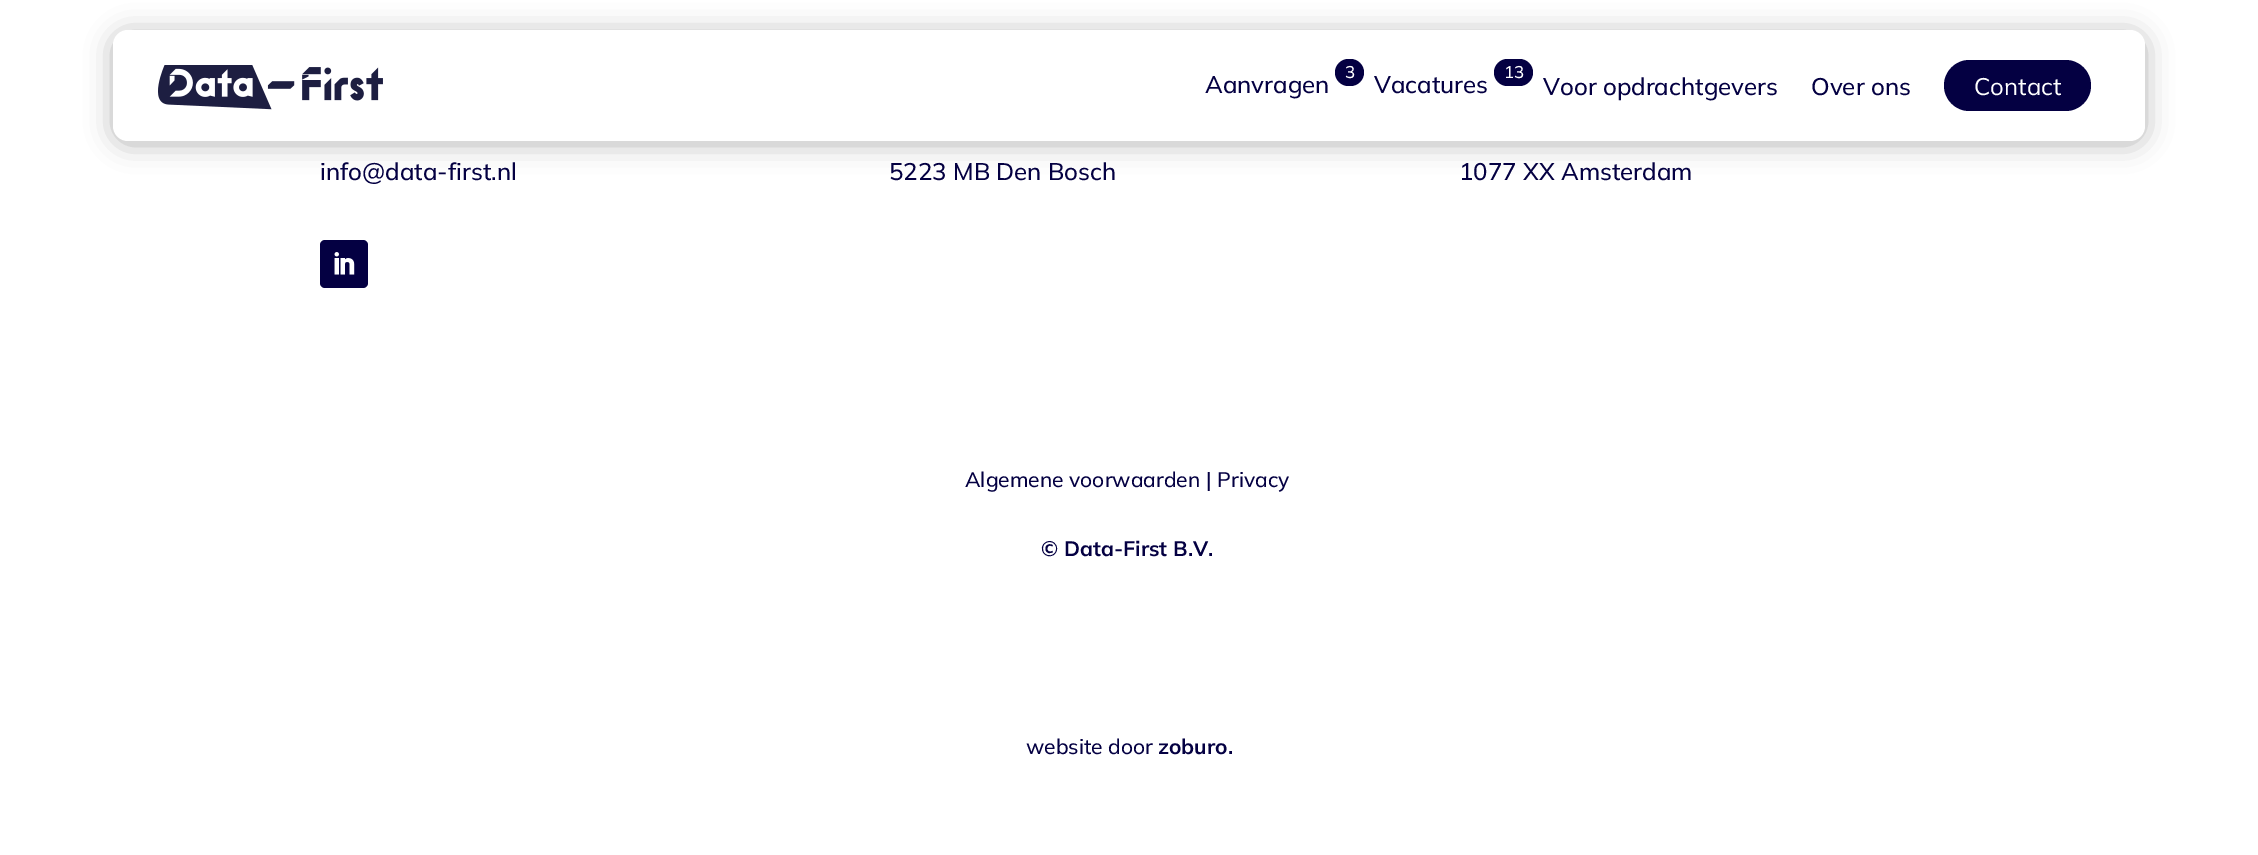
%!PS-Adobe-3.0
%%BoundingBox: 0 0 2258 855
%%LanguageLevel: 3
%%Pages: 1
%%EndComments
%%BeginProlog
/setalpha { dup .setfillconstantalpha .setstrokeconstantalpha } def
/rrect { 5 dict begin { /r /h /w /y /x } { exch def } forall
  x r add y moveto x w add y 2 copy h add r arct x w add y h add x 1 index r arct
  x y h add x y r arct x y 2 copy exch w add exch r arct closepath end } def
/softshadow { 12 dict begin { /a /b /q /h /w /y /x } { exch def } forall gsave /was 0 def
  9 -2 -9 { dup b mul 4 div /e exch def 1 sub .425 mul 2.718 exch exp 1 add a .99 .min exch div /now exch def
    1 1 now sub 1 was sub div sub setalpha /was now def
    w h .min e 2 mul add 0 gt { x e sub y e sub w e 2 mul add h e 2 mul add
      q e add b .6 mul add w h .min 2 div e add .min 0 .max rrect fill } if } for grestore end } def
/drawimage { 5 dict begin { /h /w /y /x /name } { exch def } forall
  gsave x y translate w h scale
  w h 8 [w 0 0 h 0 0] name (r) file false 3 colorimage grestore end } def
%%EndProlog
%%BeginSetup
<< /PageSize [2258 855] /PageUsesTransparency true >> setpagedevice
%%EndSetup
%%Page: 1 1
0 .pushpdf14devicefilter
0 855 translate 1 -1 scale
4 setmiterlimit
1 setgray
0 0 2258 855 rectfill
0 setgray
113 33 2032 111 15 13.5 0.3 softshadow
1 setgray
113 30 2032 111 15 rrect fill
(images/1.raw) 158 65 225 45 drawimage
0.016 0 0.259 setrgbcolor
1335 59 29 27 13.5 rrect fill
1494 59 39 27 13.5 rrect fill
1944 60 147 51 25.5 rrect fill
320 240 48 48 5 rrect fill
(images/2.raw) 334 252 21 23 drawimage
/Mulish-ExtraLight [17 0 0 -17 0 0] selectfont
1 setgray
1345 78 moveto (3) show
/Mulish-ExtraLight [24 0 0 -24 0 0] selectfont
0.016 0 0.259 setrgbcolor
1205 93 moveto (Aanvragen) show
/Mulish-ExtraLight [17 0 0 -17 0 0] selectfont
1 setgray
1504 78 moveto (13) show
/Mulish-ExtraLight [24 0 0 -24 0 0] selectfont
0.016 0 0.259 setrgbcolor
1374 93 moveto (Vacatures) show
1543 95 moveto (Voor opdrachtgevers) show
1811 95 moveto (Over ons) show
/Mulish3-ExtraLight [24 0 0 -24 0 0] selectfont
1 setgray
1974 95 moveto (Contact) show
/Mulish-ExtraLight [24 0 0 -24 0 0] selectfont
0.016 0 0.259 setrgbcolor
320 180 moveto (info@data-first.nl) show
889 180 moveto (5223 MB Den Bosch) show
1459 180 moveto (1077 XX Amsterdam) show
/Mulish-ExtraLight [21 0 0 -21 0 0] selectfont
965 487 moveto (Algemene voorwaarden | Privacy) show
/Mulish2-ExtraLight [21 0 0 -21 0 0] selectfont
1041 556 moveto (© Data-First B.V.) show
/Mulish-ExtraLight [21 0 0 -21 0 0] selectfont
1026 754 moveto (website door) show
/Mulish2-ExtraLight [21 0 0 -21 0 0] selectfont
1158 754 moveto (zoburo.) show
.poppdf14devicefilter showpage
%%EOF
